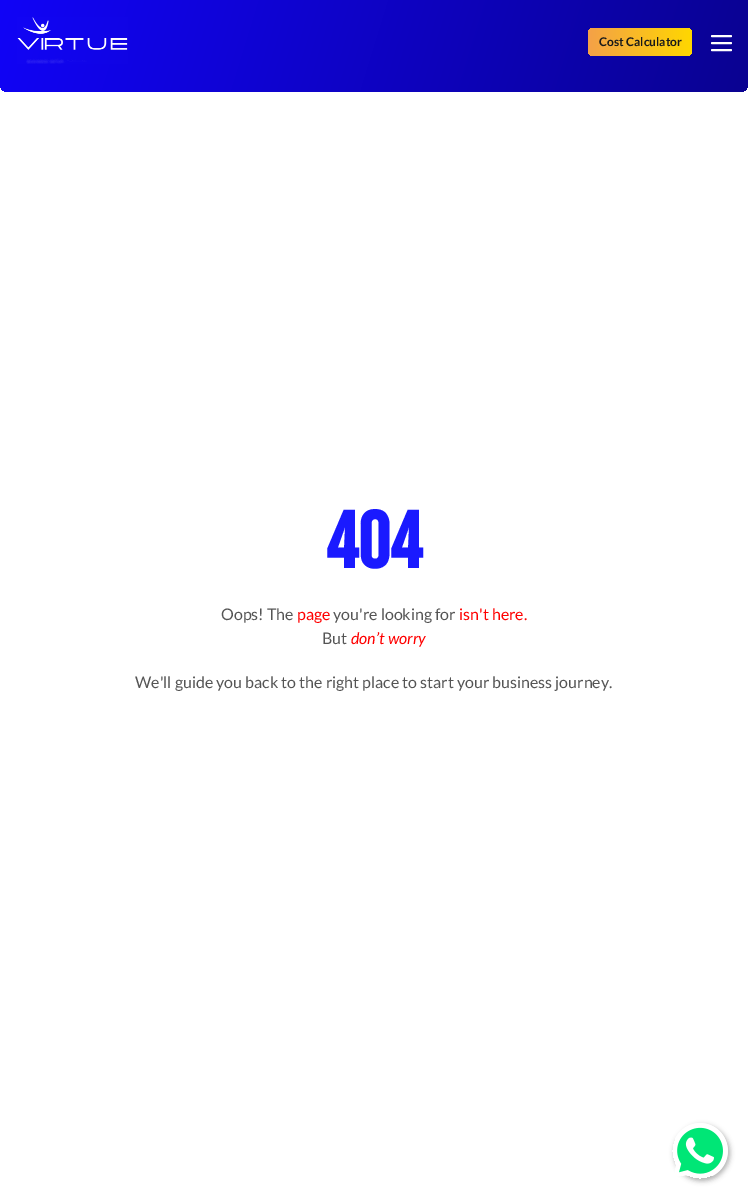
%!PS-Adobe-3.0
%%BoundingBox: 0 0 748 1199
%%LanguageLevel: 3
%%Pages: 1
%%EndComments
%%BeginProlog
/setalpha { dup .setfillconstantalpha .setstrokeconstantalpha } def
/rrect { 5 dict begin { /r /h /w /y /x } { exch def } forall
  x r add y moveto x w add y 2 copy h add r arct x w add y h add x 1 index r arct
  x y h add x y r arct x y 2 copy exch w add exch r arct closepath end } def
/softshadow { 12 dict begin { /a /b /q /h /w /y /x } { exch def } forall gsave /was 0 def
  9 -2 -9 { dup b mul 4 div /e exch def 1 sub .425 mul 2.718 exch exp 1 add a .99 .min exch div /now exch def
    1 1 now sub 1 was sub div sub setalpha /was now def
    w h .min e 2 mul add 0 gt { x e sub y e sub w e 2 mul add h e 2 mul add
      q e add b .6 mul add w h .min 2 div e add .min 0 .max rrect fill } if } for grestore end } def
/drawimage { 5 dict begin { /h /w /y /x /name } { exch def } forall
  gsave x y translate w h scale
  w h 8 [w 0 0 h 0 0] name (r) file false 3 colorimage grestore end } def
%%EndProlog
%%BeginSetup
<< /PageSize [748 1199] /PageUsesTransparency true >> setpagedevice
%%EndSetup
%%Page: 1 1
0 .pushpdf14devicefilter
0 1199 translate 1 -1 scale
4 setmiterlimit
1 setgray
0 0 748 1199 rectfill
gsave newpath 0 0 moveto 748 0 lineto 748 84 lineto 748 88.5 744.5 92 740 92 curveto 8 92 lineto 3.5 92 0 88.5 0 84 curveto closepath clip newpath
<< /ShadingType 2 /ColorSpace /DeviceRGB /Coords [19 -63 729 155] /Extend [true true] /Function << /FunctionType 2 /Domain [0 1] /C0 [0.067 0.016 0.969] /C1 [0.039 0.008 0.569] /N 1 >> >> shfill grestore
(images/1.raw) 17 17 111 47 drawimage
gsave 588 28 104 28 6 rrect clip newpath
<< /ShadingType 2 /ColorSpace /DeviceRGB /Coords [692 42 588 42] /Extend [true true] /Function << /FunctionType 2 /Domain [0 1] /C0 [1 0.843 0] /C1 [0.957 0.631 0.282] /N 1 >> >> shfill grestore
2 setlinewidth
1 setlinecap
newpath 712 36 moveto 731 36 lineto 712 43 moveto 731 43 lineto 712 50 moveto 731 50 lineto stroke
gsave
newpath 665 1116 moveto 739 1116 lineto 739 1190 lineto 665 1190 lineto closepath 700 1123 moveto 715.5 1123 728 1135.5 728 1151 curveto 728 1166.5 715.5 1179 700 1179 curveto 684.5 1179 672 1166.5 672 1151 curveto 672 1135.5 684.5 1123 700 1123 curveto closepath eoclip newpath
0 setgray
674 1125 56 56 28 2.5 0.3 softshadow
grestore
(images/2.raw) 675 1123 53 53 drawimage
/Lato-Bold [12 0 0 -12 0 0] selectfont
0.102 setgray
599 46 moveto (Cost Calculator) show
/BebasNeue-Bold [80 0 0 -80 0 0] selectfont
0.102 0.102 1 setrgbcolor
326 568 moveto (404) show
/Lato-Regular [16 0 0 -16 0 0] selectfont
0.333 setgray
221 620 moveto (Oops! The) show
1 0 0 setrgbcolor
297 620 moveto (page) show
0.333 setgray
333 620 moveto (you're looking for) show
1 0 0 setrgbcolor
459 620 moveto (isn't here.) show
0.333 setgray
322 644 moveto (But) show
/Lato-Italic [16 0 0 -16 0 0] selectfont
1 0 0 setrgbcolor
351 644 moveto (don’t worry) show
/Lato-Regular [16 0 0 -16 0 0] selectfont
0.333 setgray
135 688 moveto (We'll guide you back to the right place to start your business journey.) show
.poppdf14devicefilter showpage
%%EOF
